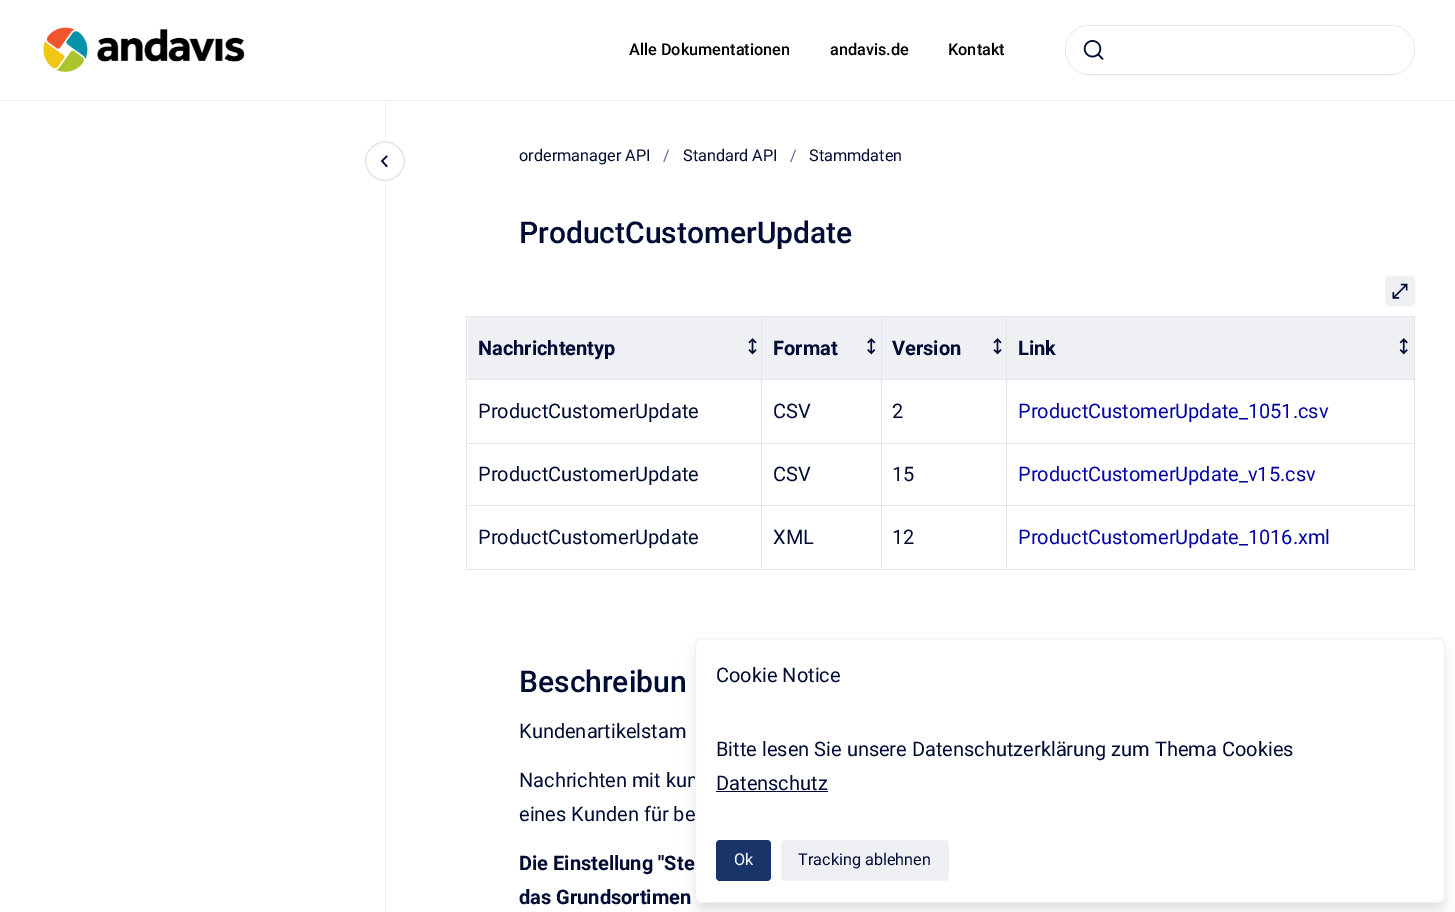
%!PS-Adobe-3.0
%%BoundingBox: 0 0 1455 912
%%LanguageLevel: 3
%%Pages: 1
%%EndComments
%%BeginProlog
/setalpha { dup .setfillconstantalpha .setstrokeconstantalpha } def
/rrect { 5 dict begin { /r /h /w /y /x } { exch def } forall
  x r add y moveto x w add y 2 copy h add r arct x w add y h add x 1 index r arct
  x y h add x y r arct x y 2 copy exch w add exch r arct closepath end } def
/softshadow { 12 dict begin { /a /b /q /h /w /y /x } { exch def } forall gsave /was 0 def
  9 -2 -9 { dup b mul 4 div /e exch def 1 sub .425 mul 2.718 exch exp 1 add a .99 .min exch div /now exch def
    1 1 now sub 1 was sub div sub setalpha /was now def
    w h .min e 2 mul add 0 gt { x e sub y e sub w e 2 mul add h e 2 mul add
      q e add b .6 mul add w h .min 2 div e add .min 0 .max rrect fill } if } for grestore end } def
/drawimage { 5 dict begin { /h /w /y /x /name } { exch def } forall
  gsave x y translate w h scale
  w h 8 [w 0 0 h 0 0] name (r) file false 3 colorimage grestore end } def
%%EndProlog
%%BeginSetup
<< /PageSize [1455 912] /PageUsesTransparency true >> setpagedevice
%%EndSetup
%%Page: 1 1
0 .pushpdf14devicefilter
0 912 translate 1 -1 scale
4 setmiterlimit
1 setgray
0 0 1455 912 rectfill
0.937 0.941 0.957 setrgbcolor
0 100 1455 1 rectfill
(images/1.raw) 43 27 202 45 drawimage
0.886 0.898 0.922 setrgbcolor
1065.5 25.5 349 49 24.5 rrect stroke
1 setgray
1066 26 348 48 24 rrect fill
(images/2.raw) 1083 40 21 20 drawimage
0.937 0.941 0.957 setrgbcolor
385 101 1 811 rectfill
1 setgray
newpath 385 181 moveto 359 181 359 141 385 141 curveto 411 141 411 181 385 181 curveto closepath fill
0.886 0.898 0.922 setrgbcolor
1.2 setlinewidth
newpath 385 180.5 moveto 374.5 180.5 365.5 172 365.5 161 curveto 365.5 150.5 374.5 142 385 142 curveto 395.5 142 404.5 150.5 404.5 161 curveto 404.5 172 395.5 180.5 385 180.5 curveto closepath stroke
0 0.047 0.204 setrgbcolor
1.6 setlinewidth
2 setlinecap
newpath 386.5 166 moveto 382 161 lineto 386.5 156.5 lineto stroke
0.937 0.941 0.957 setrgbcolor
1385.5 276.5 29 29 4.5 rrect gsave fill grestore
1 setlinewidth
0 setlinecap
stroke
(images/3.raw) 1392 283 16 16 drawimage
0.886 0.898 0.922 setrgbcolor
466 316 949 1 rectfill
1414 316 1 254 rectfill
466 569 949 1 rectfill
466 316 1 254 rectfill
0.937 0.941 0.957 setrgbcolor
468 317 413 62 rectfill
(images/4.raw) 748 338 9 17 drawimage
(images/5.raw) 867 338 9 17 drawimage
0.886 0.898 0.922 setrgbcolor
1006 379 409 1 rectfill
1006 443 409 1 rectfill
1006 505 409 1 rectfill
1006 505 1 65 rectfill
881 505 127 1 rectfill
1006 443 1 63 rectfill
881 443 127 1 rectfill
1006 379 1 65 rectfill
881 379 127 1 rectfill
881 505 1 65 rectfill
761 505 122 1 rectfill
881 443 1 63 rectfill
761 443 122 1 rectfill
881 379 1 65 rectfill
761 379 122 1 rectfill
761 505 1 65 rectfill
466 505 297 1 rectfill
761 443 1 63 rectfill
466 443 297 1 rectfill
761 379 1 65 rectfill
466 379 297 1 rectfill
761 316 1 64 rectfill
0.937 0.941 0.957 setrgbcolor
882 317 532 62 rectfill
(images/4.raw) 993 338 9 17 drawimage
0.886 0.898 0.922 setrgbcolor
881 316 1 64 rectfill
(images/6.raw) 1399 338 9 17 drawimage
1006 316 1 64 rectfill
0 setgray
698 645 745 260 4 4 0.05 softshadow
699 654 742 257 2.5 9.5 0.1 softshadow
/Roboto-Medium [16.25 0 0 -16.25 0 0] selectfont
629 55 moveto (Alle Dokumentationen) show
830 55 moveto (andavis.de) show
948 55 moveto (Kontakt) show
/Roboto-Regular [16.25 0 0 -16.25 0 0] selectfont
0 0.047 0.204 setrgbcolor
519 161 moveto (ordermanager API) show
0.365 0.42 0.561 setrgbcolor
663 161 moveto (/) show
0 0.047 0.204 setrgbcolor
683 161 moveto (Standard API) show
0.365 0.42 0.561 setrgbcolor
790 161 moveto (/) show
0 0.047 0.204 setrgbcolor
809 161 moveto (Stammdaten) show
/Roboto-Medium [30 0 0 -30 0 0] selectfont
519 243 moveto (ProductCustomerUpdate) show
/Roboto-Bold [20 0 0 -20 0 0] selectfont
478 355 moveto (Nachrichtentyp) show
773 355 moveto (Format) show
892 355 moveto (Version) show
1018 355 moveto (Link) show
/Roboto-Regular [20 0 0 -20 0 0] selectfont
478 418 moveto (ProductCustomerUpdate) show
773 418 moveto (CSV) show
892 418 moveto (2) show
0.016 0.016 0.639 setrgbcolor
1018 418 moveto (ProductCustomerUpdate_1051.csv) show
0 0.047 0.204 setrgbcolor
478 481 moveto (ProductCustomerUpdate) show
773 481 moveto (CSV) show
892 481 moveto (15) show
0.016 0.016 0.639 setrgbcolor
1018 481 moveto (ProductCustomerUpdate_v15.csv) show
0 0.047 0.204 setrgbcolor
478 544 moveto (ProductCustomerUpdate) show
773 544 moveto (XML) show
892 544 moveto (12) show
0.016 0.016 0.639 setrgbcolor
1018 544 moveto (ProductCustomerUpdate_1016.xml) show
/Roboto-Medium [30 0 0 -30 0 0] selectfont
0 0.047 0.204 setrgbcolor
519 692 moveto (Beschreibun) show
/Roboto-Regular [20 0 0 -20 0 0] selectfont
519 738 moveto (Kundenartikelstam) show
519 787 moveto (Nachrichten mit kun) show
519 821 moveto (eines Kunden für be) show
/Roboto-Bold [20 0 0 -20 0 0] selectfont
519 870 moveto (Die Einstellung "Ste) show
519 904 moveto (das Grundsortimen) show
1 setgray
695.5 638.5 749 264 5.5 rrect gsave fill grestore
0.937 0.941 0.957 setrgbcolor
stroke
/Roboto-Regular [20 0 0 -20 0 0] selectfont
0 0.047 0.204 setrgbcolor
716 682 moveto (Cookie Notice) show
716 756 moveto (Bitte lesen Sie unsere Datenschutzerklärung zum Thema Cookies) show
716 790 moveto (Datenschutz) show
716 791 112 1 rectfill
0.098 0.204 0.408 setrgbcolor
716 840 55 41 4 rrect fill
/Roboto-Regular [16.25 0 0 -16.25 0 0] selectfont
1 setgray
734 865 moveto (Ok) show
0.937 0.941 0.957 setrgbcolor
781 840 168 41 4 rrect fill
0 0.047 0.204 setrgbcolor
798 865 moveto (Tracking ablehnen) show
.poppdf14devicefilter showpage
%%EOF
